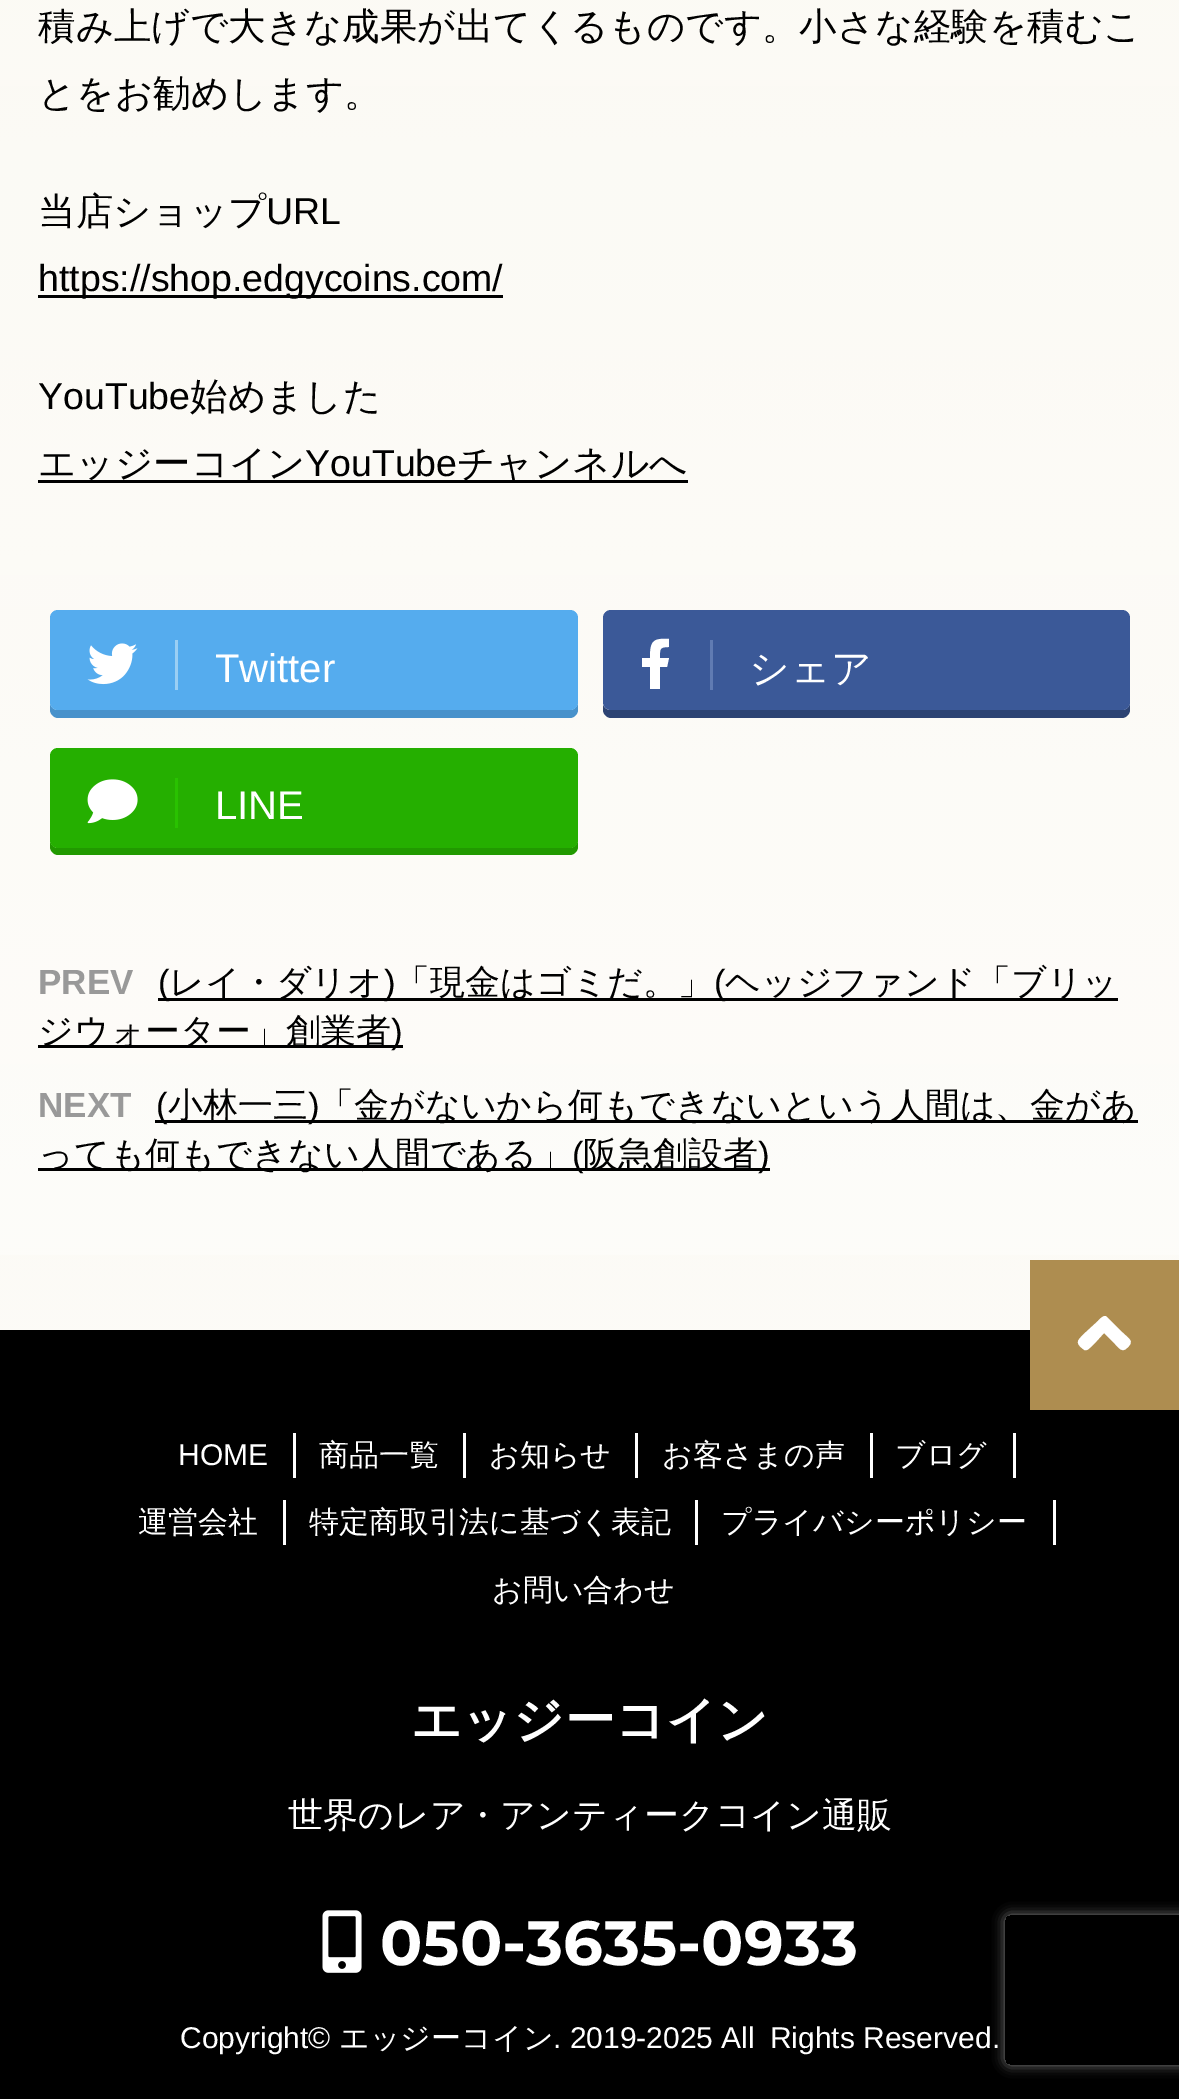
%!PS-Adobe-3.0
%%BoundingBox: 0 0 1179 2099
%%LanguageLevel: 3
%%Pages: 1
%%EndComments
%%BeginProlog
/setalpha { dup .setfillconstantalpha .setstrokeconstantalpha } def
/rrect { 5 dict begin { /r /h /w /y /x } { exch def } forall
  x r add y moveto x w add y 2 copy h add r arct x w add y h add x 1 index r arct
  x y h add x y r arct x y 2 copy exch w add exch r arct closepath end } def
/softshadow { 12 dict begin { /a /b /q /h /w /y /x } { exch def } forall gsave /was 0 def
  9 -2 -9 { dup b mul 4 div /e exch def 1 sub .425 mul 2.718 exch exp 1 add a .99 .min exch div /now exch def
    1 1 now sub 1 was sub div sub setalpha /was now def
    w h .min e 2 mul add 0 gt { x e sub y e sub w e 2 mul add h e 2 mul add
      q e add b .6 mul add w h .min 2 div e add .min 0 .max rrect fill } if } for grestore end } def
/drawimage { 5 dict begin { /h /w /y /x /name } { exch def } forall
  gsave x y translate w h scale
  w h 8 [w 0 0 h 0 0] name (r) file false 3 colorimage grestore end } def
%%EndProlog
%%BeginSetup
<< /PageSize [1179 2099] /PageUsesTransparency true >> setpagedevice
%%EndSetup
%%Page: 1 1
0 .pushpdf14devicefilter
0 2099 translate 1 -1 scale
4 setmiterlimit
1 setgray
0 0 1179 2099 rectfill
(images/1.raw) 0 0 1179 1330 drawimage
0 setgray
38 295 465 3 rectfill
38 480 650 3 rectfill
0.282 0.573 0.796 setrgbcolor
newpath 50 702 moveto 50 710 lineto 50 714 54 718 58 718 curveto 570 718 lineto 574 718 578 714 578 710 curveto 578 626 lineto 578 623 lineto 578 702 lineto 578 707 574 710 570 710 curveto 58 710 lineto 53 710 50 707 50 702 curveto closepath fill
0.333 0.675 0.933 setrgbcolor
50 610 528 100 8 rrect fill
0.604 0.812 0.957 setrgbcolor
175 640 3 50 rectfill
(images/2.raw) 87 643 51 42 drawimage
0.173 0.263 0.451 setrgbcolor
newpath 603 705 moveto 603 710 lineto 603 714 607 718 611 718 curveto 1122 718 lineto 1126 718 1130 714 1130 710 curveto 1130 702 lineto 1130 707 1127 710 1122 710 curveto 610 710 lineto 607 710 604 708 603 705 curveto closepath fill
0.231 0.349 0.596 setrgbcolor
603 610 527 100 8 rrect fill
0.376 0.482 0.698 setrgbcolor
710 640 3 50 rectfill
1 setgray
newpath 667 667 moveto 660 667 lineto 660 689 lineto 650 689 lineto 650 667 lineto 642 667 lineto 642 658 lineto 650 658 lineto 650 641 653 638 669 639 curveto 669 647 lineto 659 647 660 649 660 658 curveto 669 658 lineto closepath fill
0.129 0.6 0 setrgbcolor
newpath 50 840 moveto 50 847 lineto 50 851 54 855 58 855 curveto 570 855 lineto 574 855 578 851 578 847 curveto 578 763 lineto 578 760 lineto 578 840 lineto 578 844 574 848 570 848 curveto 58 848 lineto 53 848 50 844 50 840 curveto closepath fill
0.145 0.686 0 setrgbcolor
50 748 528 100 8 rrect fill
0.161 0.761 0 setrgbcolor
175 778 3 50 rectfill
(images/3.raw) 87 779 51 45 drawimage
0 setgray
158 998 960 3 rectfill
38 1045 365 3 rectfill
155 1120 983 3 rectfill
38 1168 732 3 rectfill
0 1330 1179 769 rectfill
0.682 0.553 0.314 setrgbcolor
1030 1260 149 150 rectfill
1 setgray
newpath 1107 1317 moveto 1122 1332 lineto 1129 1339 1135 1341 1127 1348 curveto 1122 1353 1119 1348 1115 1344 curveto 1104 1333 lineto 1094 1344 lineto 1091 1346 1087 1353 1083 1349 curveto 1074 1342 1078 1340 1086 1332 curveto 1098 1321 lineto 1100 1319 1104 1314 1107 1317 curveto closepath fill
293 1433 3 45 rectfill
463 1433 3 45 rectfill
635 1433 3 45 rectfill
870 1433 3 45 rectfill
1013 1433 3 45 rectfill
283 1500 3 45 rectfill
695 1500 3 45 rectfill
1053 1500 3 45 rectfill
(images/4.raw) 322 1910 40 63 drawimage
gsave
newpath 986 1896 moveto 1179 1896 lineto 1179 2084 lineto 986 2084 lineto closepath 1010 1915 moveto 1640 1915 lineto 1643 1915 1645 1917 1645 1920 curveto 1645 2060 lineto 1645 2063 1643 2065 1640 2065 curveto 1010 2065 lineto 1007 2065 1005 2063 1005 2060 curveto 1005 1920 lineto 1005 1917 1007 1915 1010 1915 curveto closepath eoclip newpath
0.502 setgray
1005 1915 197 150 5 6 1 softshadow
grestore
/WenQuanYiZenHei-Medium [37.5 0 0 -37.5 0 0] selectfont
0 setgray
38 39 moveto (積み上げで大きな成果が出てくるものです。小さな経験を積むこ) show
38 106 moveto (とをお勧めします。) show
38 224 moveto (当店ショップ) show
/LiberationSans-Regular [37.5 0 0 -37.5 0 0] selectfont
266 224 moveto (URL) show
38 291 moveto (https://shop.edgycoins.com/) show
38 409 moveto (YouTube) show
/WenQuanYiZenHei-Medium [37.5 0 0 -37.5 0 0] selectfont
190 409 moveto (始めました) show
38 476 moveto (エッジーコイン) show
/LiberationSans-Regular [37.5 0 0 -37.5 0 0] selectfont
305 476 moveto (YouTube) show
/WenQuanYiZenHei-Medium [37.5 0 0 -37.5 0 0] selectfont
457 476 moveto (チャンネルへ) show
/LiberationSans-Regular [40 0 0 -40 0 0] selectfont
1 setgray
215 682 moveto (Twitter) show
/WenQuanYiZenHei-Medium [40 0 0 -40 0 0] selectfont
749 682 moveto (シェア) show
/LiberationSans-Regular [40 0 0 -40 0 0] selectfont
215 819 moveto (LINE) show
/LiberationSans-Bold [35 0 0 -35 0 0] selectfont
0.6 setgray
38 994 moveto (PREV) show
/LiberationSans-Regular [35 0 0 -35 0 0] selectfont
0 setgray
158 994 moveto (\() show
/WenQuanYiZenHei-Medium [35 0 0 -35 0 0] selectfont
169 994 moveto (レイ・ダリオ) show
/LiberationSans-Regular [35 0 0 -35 0 0] selectfont
384 994 moveto (\)) show
/WenQuanYiZenHei-Medium [35 0 0 -35 0 0] selectfont
395 994 moveto (「現金はゴミだ。」) show
/LiberationSans-Regular [35 0 0 -35 0 0] selectfont
714 994 moveto (\() show
/WenQuanYiZenHei-Medium [35 0 0 -35 0 0] selectfont
725 994 moveto (ヘッジファンド「ブリッ) show
38 1043 moveto (ジウォーター」創業者) show
/LiberationSans-Regular [35 0 0 -35 0 0] selectfont
391 1043 moveto (\)) show
/LiberationSans-Bold [35 0 0 -35 0 0] selectfont
0.6 setgray
38 1117 moveto (NEXT) show
/LiberationSans-Regular [35 0 0 -35 0 0] selectfont
0 setgray
156 1117 moveto (\() show
/WenQuanYiZenHei-Medium [35 0 0 -35 0 0] selectfont
168 1117 moveto (小林一三) show
/LiberationSans-Regular [35 0 0 -35 0 0] selectfont
308 1117 moveto (\)) show
/WenQuanYiZenHei-Medium [35 0 0 -35 0 0] selectfont
319 1117 moveto (「金がないから何もできないという人間は、金があ) show
38 1166 moveto (っても何もできない人間である」) show
/LiberationSans-Regular [35 0 0 -35 0 0] selectfont
572 1166 moveto (\() show
/WenQuanYiZenHei-Medium [35 0 0 -35 0 0] selectfont
583 1166 moveto (阪急創設者) show
/LiberationSans-Regular [35 0 0 -35 0 0] selectfont
758 1166 moveto (\)) show
/LiberationSans-Regular [30 0 0 -30 0 0] selectfont
1 setgray
178 1465 moveto (HOME) show
/WenQuanYiZenHei-Medium [30 0 0 -30 0 0] selectfont
319 1465 moveto (商品一覧) show
489 1465 moveto (お知らせ) show
662 1465 moveto (お客さまの声) show
895 1465 moveto (ブログ) show
138 1532 moveto (運営会社) show
309 1532 moveto (特定商取引法に基づく表記) show
721 1532 moveto (プライバシーポリシー) show
492 1600 moveto (お問い合わせ) show
/WenQuanYiZenHei-Bold [50 0 0 -50 0 0] selectfont
411 1737 moveto (エッジーコイン) show
/WenQuanYiZenHei-Medium [35 0 0 -35 0 0] selectfont
288 1827 moveto (世界のレア・アンティークコイン通販) show
/Montserrat-Thin [62.5 0 0 -62.5 0 0] selectfont
380 1965 moveto (050-3635-0933) show
/LiberationSans-Regular [30 0 0 -30 0 0] selectfont
180 2048 moveto (Copyright©) show
/WenQuanYiZenHei-Medium [30 0 0 -30 0 0] selectfont
339 2048 moveto (エッジーコイン) show
/LiberationSans-Regular [30 0 0 -30 0 0] selectfont
553 2048 moveto (. 2019-2025 All Rights Reserved.) show
.poppdf14devicefilter showpage
%%EOF
